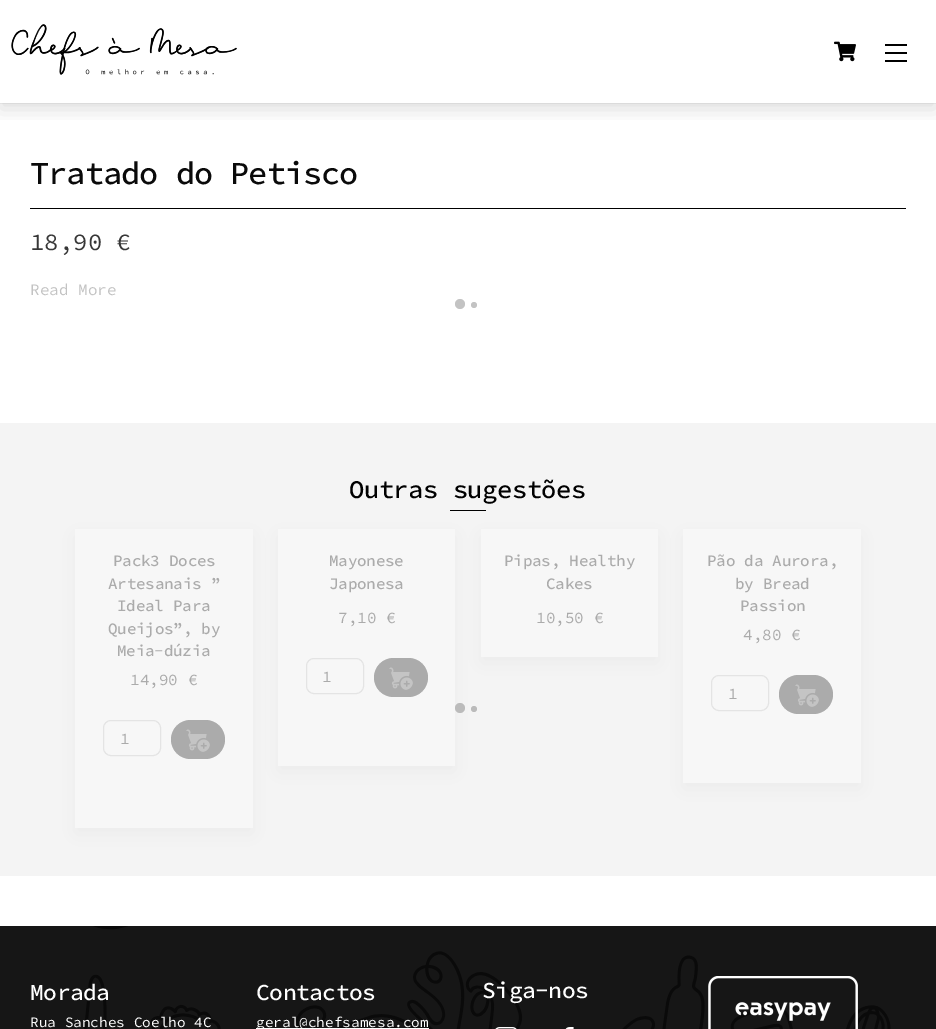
%!PS-Adobe-3.0
%%BoundingBox: 0 0 936 1029
%%LanguageLevel: 3
%%Pages: 1
%%EndComments
%%BeginProlog
/setalpha { dup .setfillconstantalpha .setstrokeconstantalpha } def
/rrect { 5 dict begin { /r /h /w /y /x } { exch def } forall
  x r add y moveto x w add y 2 copy h add r arct x w add y h add x 1 index r arct
  x y h add x y r arct x y 2 copy exch w add exch r arct closepath end } def
/softshadow { 12 dict begin { /a /b /q /h /w /y /x } { exch def } forall gsave /was 0 def
  9 -2 -9 { dup b mul 4 div /e exch def 1 sub .425 mul 2.718 exch exp 1 add a .99 .min exch div /now exch def
    1 1 now sub 1 was sub div sub setalpha /was now def
    w h .min e 2 mul add 0 gt { x e sub y e sub w e 2 mul add h e 2 mul add
      q e add b .6 mul add w h .min 2 div e add .min 0 .max rrect fill } if } for grestore end } def
/drawimage { 5 dict begin { /h /w /y /x /name } { exch def } forall
  gsave x y translate w h scale
  w h 8 [w 0 0 h 0 0] name (r) file false 3 colorimage grestore end } def
%%EndProlog
%%BeginSetup
<< /PageSize [936 1029] /PageUsesTransparency true >> setpagedevice
%%EndSetup
%%Page: 1 1
0 .pushpdf14devicefilter
0 1029 translate 1 -1 scale
4 setmiterlimit
1 setgray
0 0 936 1029 rectfill
0.949 setgray
0 103 936 1 rectfill
gsave
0 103 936 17 rectclip
0 setgray
0 6 936 103 0 10 0.14 softshadow
grestore
(images/1.raw) 11 24 226 51 drawimage
(images/2.raw) 834 41 22 21 drawimage
0 setgray
885 60 22 2 rectfill
885 44 22 2 rectfill
885 52 22 2 rectfill
30 208 876 1 rectfill
0.765 setgray
newpath 460 304 5 0 360 arc closepath fill
newpath 474 305 3 0 360 arc closepath fill
0.957 setgray
0 423 936 453 rectfill
0 setgray
450 510 36 1 rectfill
0.671 setgray
75 535 178 299 0 10 0.14 softshadow
0.969 setgray
75 529 178 299 rectfill
0.894 setgray
103.5 720.5 57 35 7.5 rrect stroke
0.671 setgray
171 720 54 39 19.5 rrect fill
(images/3.raw) 186 729 24 23 drawimage
0.733 setgray
newpath 460 708 5 0 360 arc closepath fill
0.671 setgray
278 535 177 237 0 10 0.14 softshadow
0.969 setgray
278 529 177 237 rectfill
0.894 setgray
306.5 658.5 57 35 7.5 rrect stroke
0.671 setgray
374 658 54 39 19.5 rrect fill
(images/3.raw) 389 667 24 23 drawimage
481 535 177 128 0 10 0.14 softshadow
0.969 setgray
481 529 177 128 rectfill
0.671 setgray
683 535 178 254 0 10 0.14 softshadow
0.969 setgray
683 529 178 254 rectfill
0.894 setgray
711.5 675.5 57 35 7.5 rrect stroke
0.671 setgray
779 675 54 39 19.5 rrect fill
(images/3.raw) 795 684 24 23 drawimage
0.733 setgray
newpath 474 709 3 0 360 arc closepath fill
0.086 setgray
0 926 936 103 rectfill
(images/4.raw) 84 926 807 103 drawimage
1 setgray
256 1028 173 1 rectfill
(images/5.raw) 495 1027 22 2 drawimage
(images/6.raw) 565 1027 9 2 drawimage
(images/7.raw) 708 976 150 53 drawimage
/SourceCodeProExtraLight-Medium [32 0 0 -32 0 0] selectfont
0.039 setgray
30 184 moveto -1 0 (Tratado do Petisco) ashow
/SourceCodeProExtraLight-Regular [24 0 0 -24 0 0] selectfont
0.216 setgray
30 250 moveto (18,90 €) show
/SourceCodeProExtraLight-Regular [16 0 0 -16 0 0] selectfont
0.765 setgray
30 295 moveto (Read More) show
/SourceCodeProExtraLight-Medium [25.5 0 0 -25.5 0 0] selectfont
0 setgray
349 498 moveto -0.5 0 (Outras sugestões) ashow
/SourceCodeProExtraLight-Medium [16 0 0 -16 0 0] selectfont
0.671 setgray
113 566 moveto -0.25 0 (Pack3 Doces) ashow
108 589 moveto -0.25 0 (Artesanais ”) ashow
117 611 moveto -0.25 0 (Ideal Para) ashow
108 634 moveto -0.25 0 (Queijos”, by) ashow
117 656 moveto -0.25 0 (Meia-dúzia) ashow
/SourceCodeProExtraLight-Regular [16 0 0 -16 0 0] selectfont
130 685 moveto (14,90 €) show
120 744 moveto (1) show
/SourceCodeProExtraLight-Medium [16 0 0 -16 0 0] selectfont
329 566 moveto -0.25 0 (Mayonese) ashow
329 589 moveto -0.25 0 (Japonesa) ashow
/SourceCodeProExtraLight-Regular [16 0 0 -16 0 0] selectfont
338 623 moveto (7,10 €) show
322 682 moveto (1) show
/SourceCodeProExtraLight-Medium [16 0 0 -16 0 0] selectfont
504 566 moveto -0.25 0 (Pipas, Healthy) ashow
546 589 moveto -0.25 0 (Cakes) ashow
/SourceCodeProExtraLight-Regular [16 0 0 -16 0 0] selectfont
536 623 moveto (10,50 €) show
/SourceCodeProExtraLight-Medium [16 0 0 -16 0 0] selectfont
707 566 moveto -0.25 0 (Pão da Aurora,) ashow
735 589 moveto -0.25 0 (by Bread) ashow
740 611 moveto -0.25 0 (Passion) ashow
/SourceCodeProExtraLight-Regular [16 0 0 -16 0 0] selectfont
743 640 moveto (4,80 €) show
728 699 moveto (1) show
/SourceCodeProExtraLight-Medium [23 0 0 -23 0 0] selectfont
1 setgray
30 1000 moveto -0.5 0 (Morada) ashow
/SourceCodeProExtraLight-Regular [14.4 0 0 -14.4 0 0] selectfont
30 1027 moveto (Rua Sanches Coelho 4C) show
/SourceCodeProExtraLight-Medium [23 0 0 -23 0 0] selectfont
256 1000 moveto -0.5 0 (Contactos) ashow
/SourceCodeProExtraLight-Regular [14.4 0 0 -14.4 0 0] selectfont
256 1027 moveto (geral@chefsamesa.com) show
/SourceCodeProExtraLight-Medium [23 0 0 -23 0 0] selectfont
482 998 moveto -0.5 0 (Siga-nos) ashow
.poppdf14devicefilter showpage
%%EOF
